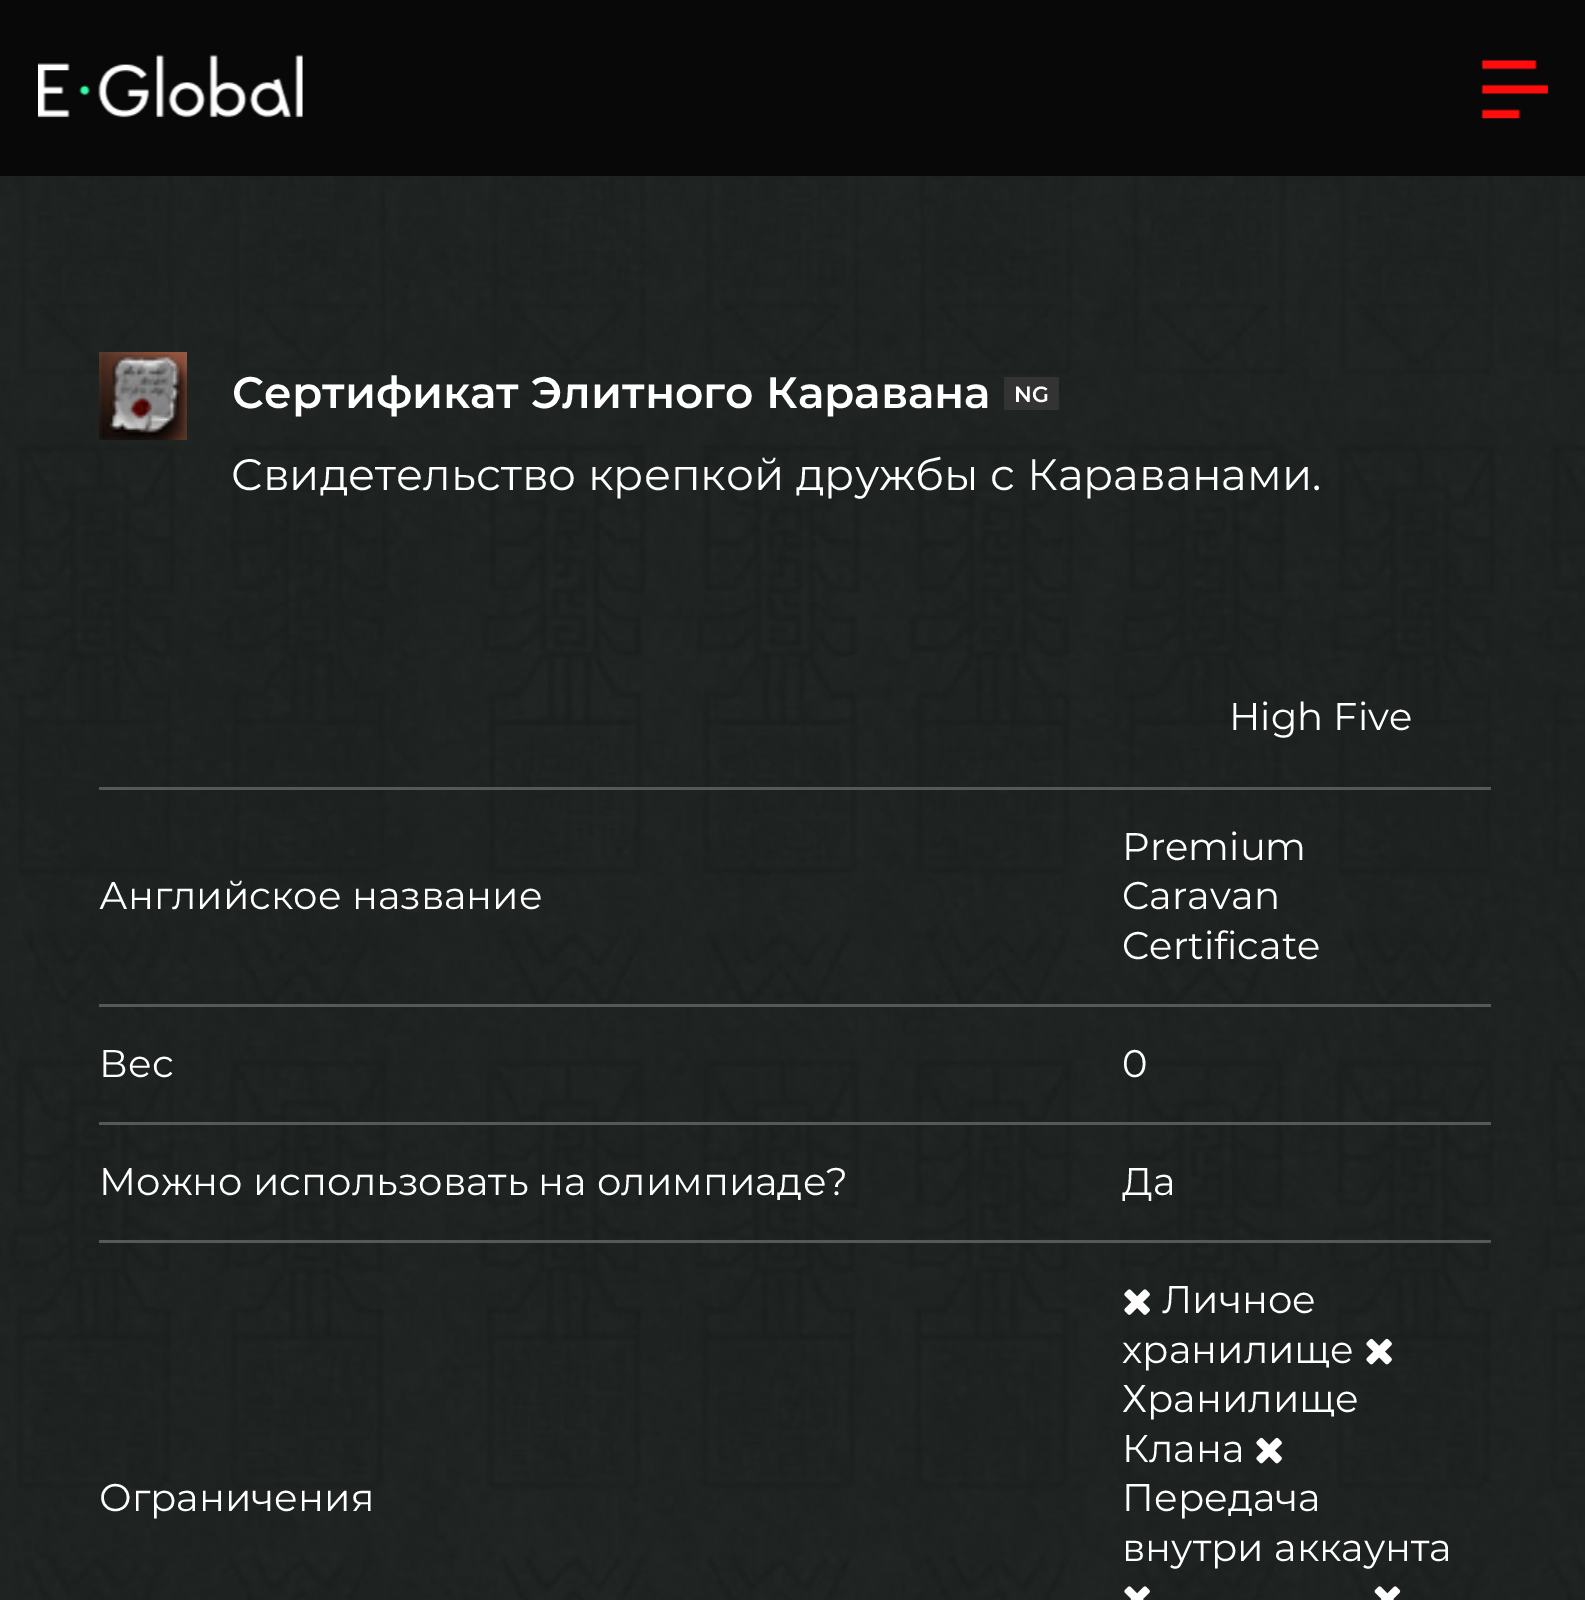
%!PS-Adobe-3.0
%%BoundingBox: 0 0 1585 1600
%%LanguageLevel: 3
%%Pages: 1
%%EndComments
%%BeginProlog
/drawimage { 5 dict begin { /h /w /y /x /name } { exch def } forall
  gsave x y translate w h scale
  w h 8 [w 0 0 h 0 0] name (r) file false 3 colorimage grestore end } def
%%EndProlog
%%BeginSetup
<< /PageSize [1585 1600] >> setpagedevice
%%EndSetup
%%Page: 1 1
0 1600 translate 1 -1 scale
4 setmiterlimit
1 setgray
0 0 1585 1600 rectfill
(images/1.raw) 0 176 1585 1424 drawimage
0.031 setgray
0 0 1585 176 rectfill
(images/2.raw) 38 54 265 64 drawimage
(images/3.raw) 1481 60 67 59 drawimage
(images/4.raw) 99 352 88 88 drawimage
0.2 setgray
1004 377 55 33 rectfill
0.345 setgray
99 787 1392 3 rectfill
99 1004 1392 3 rectfill
99 1122 1392 3 rectfill
99 1240 1392 3 rectfill
(images/5.raw) 1124 1289 26 26 drawimage
(images/6.raw) 1366 1338 26 27 drawimage
(images/7.raw) 1256 1437 26 27 drawimage
(images/8.raw) 1124 1586 26 14 drawimage
(images/9.raw) 1374 1586 27 14 drawimage
/Montserrat-SemiBold [44 0 0 -44 0 0] selectfont
1 setgray
232 408 moveto (Сертификат Элитного Каравана) show
/Montserrat-SemiBold [22 0 0 -22 0 0] selectfont
1014 402 moveto (NG) show
/Montserrat-Regular [44 0 0 -44 0 0] selectfont
231 490 moveto (Свидетельство крепкой дружбы с Караванами.) show
/Montserrat-Regular [38.5 0 0 -38.5 0 0] selectfont
1229 730 moveto (High Five) show
99 909 moveto (Английское название) show
1122 860 moveto (Premium) show
1122 909 moveto (Caravan) show
1122 959 moveto (Certificate) show
99 1077 moveto (Вес) show
1122 1077 moveto (0) show
99 1195 moveto (Можно использовать на олимпиаде?) show
1122 1195 moveto (Да) show
99 1511 moveto (Ограничения) show
1162 1313 moveto (Личное) show
1122 1363 moveto (хранилище) show
1122 1412 moveto (Хранилище) show
1122 1462 moveto (Клана) show
1122 1511 moveto (Передача) show
1122 1561 moveto (внутри аккаунта) show
showpage
%%EOF
